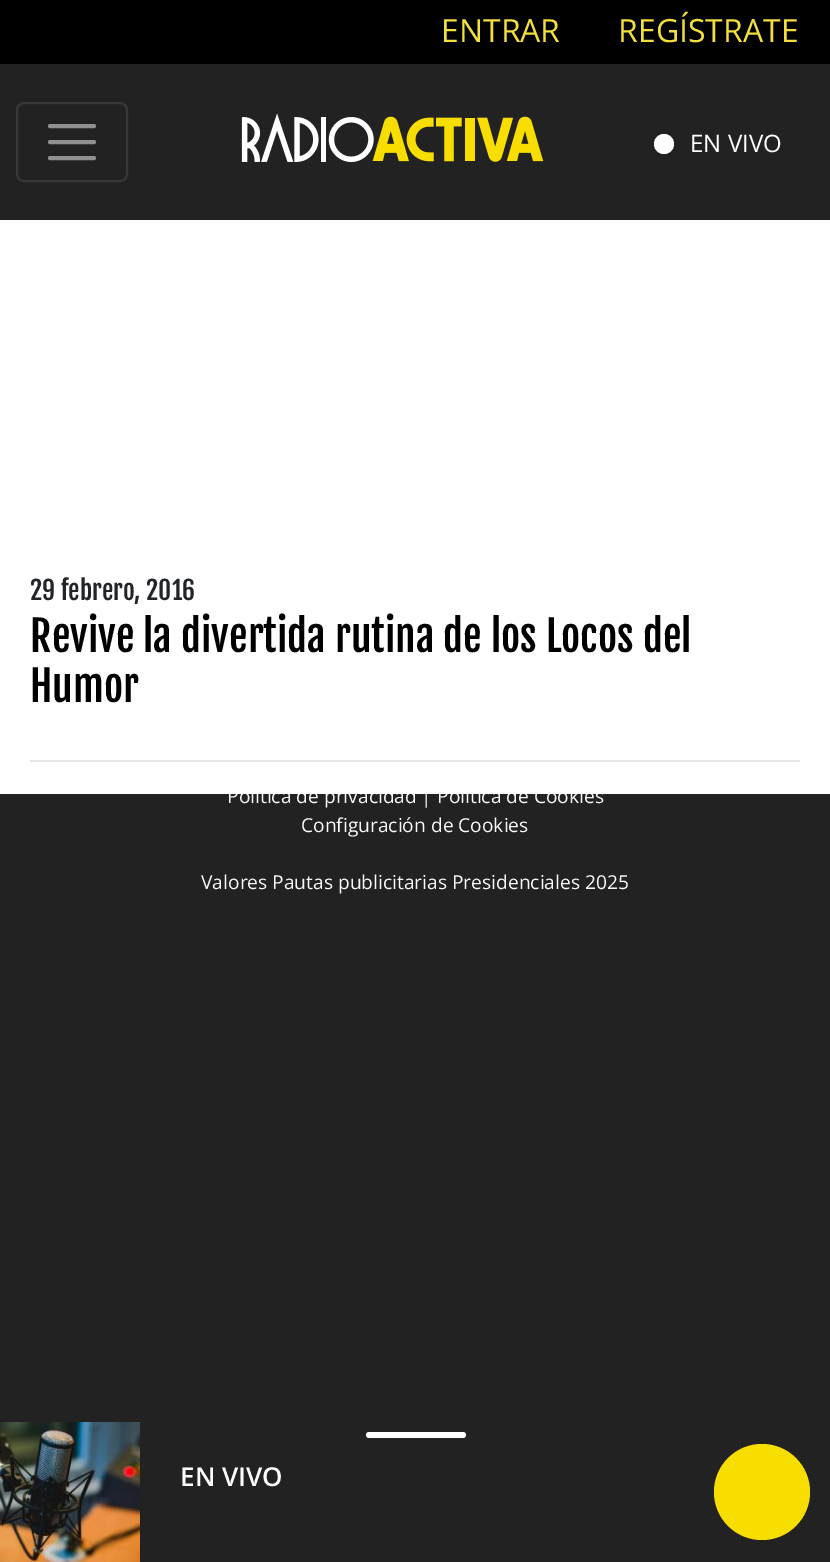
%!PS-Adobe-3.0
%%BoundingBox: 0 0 830 1562
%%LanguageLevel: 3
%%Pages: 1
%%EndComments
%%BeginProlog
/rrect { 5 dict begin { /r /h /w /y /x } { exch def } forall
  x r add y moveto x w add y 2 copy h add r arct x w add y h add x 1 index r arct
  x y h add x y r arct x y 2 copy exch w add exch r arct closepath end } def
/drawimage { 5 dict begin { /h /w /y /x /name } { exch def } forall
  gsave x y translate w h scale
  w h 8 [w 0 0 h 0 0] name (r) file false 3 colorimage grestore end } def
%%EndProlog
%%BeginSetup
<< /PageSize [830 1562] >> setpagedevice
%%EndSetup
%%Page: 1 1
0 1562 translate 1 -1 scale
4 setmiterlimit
0.133 setgray
0 0 830 1562 rectfill
0 setgray
0 0 830 64 rectfill
0.22 setgray
2 setlinewidth
17 103 110 78 7 rrect stroke
0.569 setgray
4 setlinewidth
1 setlinecap
newpath 50 126 moveto 94 126 lineto 50 142 moveto 94 142 lineto 50 158 moveto 94 158 lineto stroke
(images/1.raw) 241 113 303 49 drawimage
1 setgray
newpath 664 144 10 0 360 arc closepath fill
366 1432 100 6 3 rrect fill
(images/2.raw) 0 1422 140 140 drawimage
0.973 0.871 0 setrgbcolor
newpath 762 1492 48 0 360 arc closepath fill
/OpenSans-Regular [32 0 0 -32 0 0] selectfont
0.953 0.878 0.235 setrgbcolor
441 42 moveto (ENTRAR) show
618 42 moveto (REGÍSTRATE) show
/OpenSans-Regular [24 0 0 -24 0 0] selectfont
1 setgray
690 152 moveto (EN VIVO) show
/OpenSans-Regular [19.2 0 0 -19.2 0 0] selectfont
0.973 0.976 0.98 setrgbcolor
227 803 moveto (Política de privacidad) show
0.827 setgray
421 803 moveto (|) show
0.973 0.976 0.98 setrgbcolor
437 803 moveto (Política de Cookies) show
1 setgray
0 220 830 574 rectfill
/FjallaOne-Regular [41.6 0 0 -41.6 0 0] selectfont
0 setgray
30 702 moveto (Humor) show
30 652 moveto (Revive la divertida rutina de los Locos del) show
/FjallaOne-Regular [25.5 0 0 -25.5 0 0] selectfont
0.129 0.145 0.161 setrgbcolor
30 600 moveto (29 febrero, 2016) show
0.902 setgray
30 760 770 2 rectfill
/OpenSans-Regular [19.2 0 0 -19.2 0 0] selectfont
0.973 0.976 0.98 setrgbcolor
301 832 moveto (Configuración de Cookies) show
201 889 moveto (Valores Pautas publicitarias Presidenciales 2025) show
/OpenSans-SemiBold [26 0 0 -26 0 0] selectfont
1 setgray
180 1486 moveto (EN VIVO) show
showpage
%%EOF
